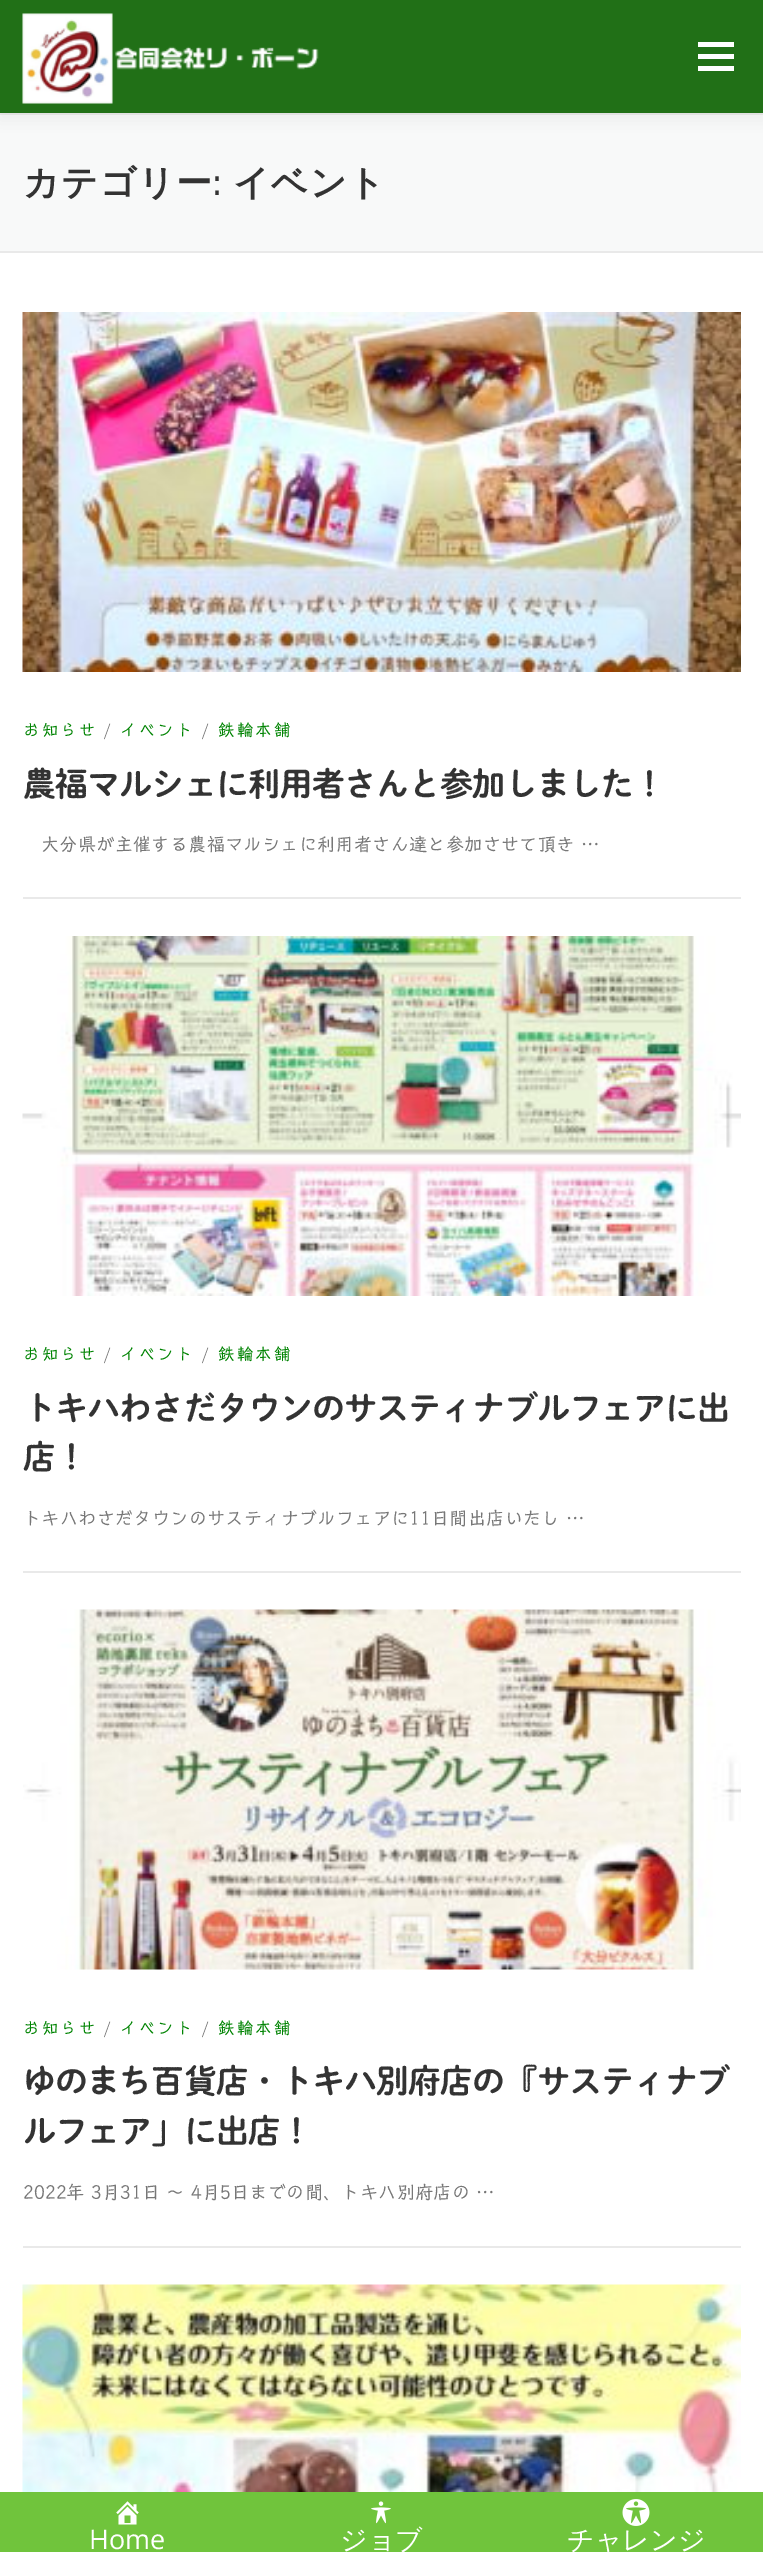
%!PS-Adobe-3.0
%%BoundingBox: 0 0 763 2552
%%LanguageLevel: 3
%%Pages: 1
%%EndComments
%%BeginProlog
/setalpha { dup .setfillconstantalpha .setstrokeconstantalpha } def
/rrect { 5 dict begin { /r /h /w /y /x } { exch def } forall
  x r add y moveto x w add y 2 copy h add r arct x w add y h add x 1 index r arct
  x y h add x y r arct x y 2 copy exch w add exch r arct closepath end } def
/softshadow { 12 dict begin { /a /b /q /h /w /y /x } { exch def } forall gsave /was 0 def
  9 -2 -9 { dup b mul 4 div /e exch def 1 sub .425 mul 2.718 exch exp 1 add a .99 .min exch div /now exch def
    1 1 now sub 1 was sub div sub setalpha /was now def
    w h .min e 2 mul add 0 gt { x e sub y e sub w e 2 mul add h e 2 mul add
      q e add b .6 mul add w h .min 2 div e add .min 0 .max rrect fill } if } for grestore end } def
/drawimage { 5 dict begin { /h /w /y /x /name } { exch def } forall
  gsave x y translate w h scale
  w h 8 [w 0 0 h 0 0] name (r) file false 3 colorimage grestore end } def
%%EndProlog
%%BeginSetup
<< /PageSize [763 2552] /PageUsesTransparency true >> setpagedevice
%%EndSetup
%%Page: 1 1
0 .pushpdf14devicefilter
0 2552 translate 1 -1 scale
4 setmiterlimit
1 setgray
0 0 763 2552 rectfill
0.973 0.976 0.976 setrgbcolor
0 115 763 136 rectfill
0.914 setgray
0 113 763 2 rectfill
0.196 setgray
0 8 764 112 0 7.5 0.06 softshadow
0.129 0.439 0.09 setrgbcolor
0 0 763 113 rectfill
(images/1.raw) 22 13 297 91 drawimage
1 setgray
698 54 36 5 rectfill
698 42 36 5 rectfill
698 66 36 5 rectfill
0.914 setgray
0 251 763 2 rectfill
(images/2.raw) 22 312 719 360 drawimage
23 897 718 2 rectfill
(images/3.raw) 22 936 719 360 drawimage
23 1571 718 2 rectfill
(images/4.raw) 23 1609 718 361 drawimage
23 2246 718 2 rectfill
(images/5.raw) 22 2284 719 208 drawimage
0.439 0.769 0.235 setrgbcolor
0 2492 763 60 rectfill
(images/6.raw) 116 2501 23 24 drawimage
(images/7.raw) 371 2501 20 23 drawimage
(images/8.raw) 622 2499 28 27 drawimage
/WenQuanYiZenHei-Bold [36 0 0 -36 0 0] selectfont
0.2 setgray
23 195 moveto 1.5 0 (カテゴリー) ashow
/Raleway-SemiBold [36 0 0 -36 0 0] selectfont
213 195 moveto 1.5 0 (:) ashow
/WenQuanYiZenHei-Bold [36 0 0 -36 0 0] selectfont
233 195 moveto 1.5 0 (イベント) ashow
/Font-Regular [16.5 0 0 -16.5 0 0] selectfont
0.004 0.518 0.012 setrgbcolor
23 736 moveto 2 0 (お知らせ) ashow
0.467 setgray
103 736 moveto 2 0 (/) ashow
0.004 0.518 0.012 setrgbcolor
120 736 moveto 2 0 (イベント) ashow
0.467 setgray
201 736 moveto 2 0 (/) ashow
0.004 0.518 0.012 setrgbcolor
218 736 moveto 2 0 (鉄輪本舗) ashow
/Font-SemiBold [33 0 0 -33 0 0] selectfont
0.2 setgray
23 796 moveto -0.9 0 (農福マルシェに利用者さんと参加しました！) ashow
/Font-Regular [18.4 0 0 -18.4 0 0] selectfont
0.467 setgray
41 851 moveto (大分県が主催する農福マルシェに利用者さん達と参加させて頂き …) show
/Font-Regular [16.5 0 0 -16.5 0 0] selectfont
0.004 0.518 0.012 setrgbcolor
23 1360 moveto 2 0 (お知らせ) ashow
0.467 setgray
103 1360 moveto 2 0 (/) ashow
0.004 0.518 0.012 setrgbcolor
120 1360 moveto 2 0 (イベント) ashow
0.467 setgray
201 1360 moveto 2 0 (/) ashow
0.004 0.518 0.012 setrgbcolor
218 1360 moveto 2 0 (鉄輪本舗) ashow
/Font-SemiBold [33 0 0 -33 0 0] selectfont
0.2 setgray
23 1420 moveto -0.9 0 (トキハわさだタウンのサスティナブルフェアに出) ashow
23 1469 moveto -0.9 0 (店！) ashow
/Font-Regular [18.4 0 0 -18.4 0 0] selectfont
0.467 setgray
23 1525 moveto (トキハわさだタウンのサスティナブルフェアに11日間出店いたし …) show
/Font-Regular [16.5 0 0 -16.5 0 0] selectfont
0.004 0.518 0.012 setrgbcolor
23 2034 moveto 2 0 (お知らせ) ashow
0.467 setgray
103 2034 moveto 2 0 (/) ashow
0.004 0.518 0.012 setrgbcolor
120 2034 moveto 2 0 (イベント) ashow
0.467 setgray
201 2034 moveto 2 0 (/) ashow
0.004 0.518 0.012 setrgbcolor
218 2034 moveto 2 0 (鉄輪本舗) ashow
/Font-SemiBold [33 0 0 -33 0 0] selectfont
0.2 setgray
23 2093 moveto -0.9 0 (ゆのまち百貨店・トキハ別府店の『サスティナブ) ashow
23 2143 moveto -0.9 0 (ルフェア」に出店！) ashow
/Font-Regular [18.4 0 0 -18.4 0 0] selectfont
0.467 setgray
23 2199 moveto (2022年 3月31日 ～ 4月5日までの間、トキハ別府店の …) show
/OpenSans-Regular [27 0 0 -27 0 0] selectfont
1 setgray
89 2549 moveto (Home) show
/WenQuanYiZenHei-Medium [27 0 0 -27 0 0] selectfont
340 2549 moveto (ジョブ) show
567 2549 moveto (チャレンジ) show
.poppdf14devicefilter showpage
%%EOF
